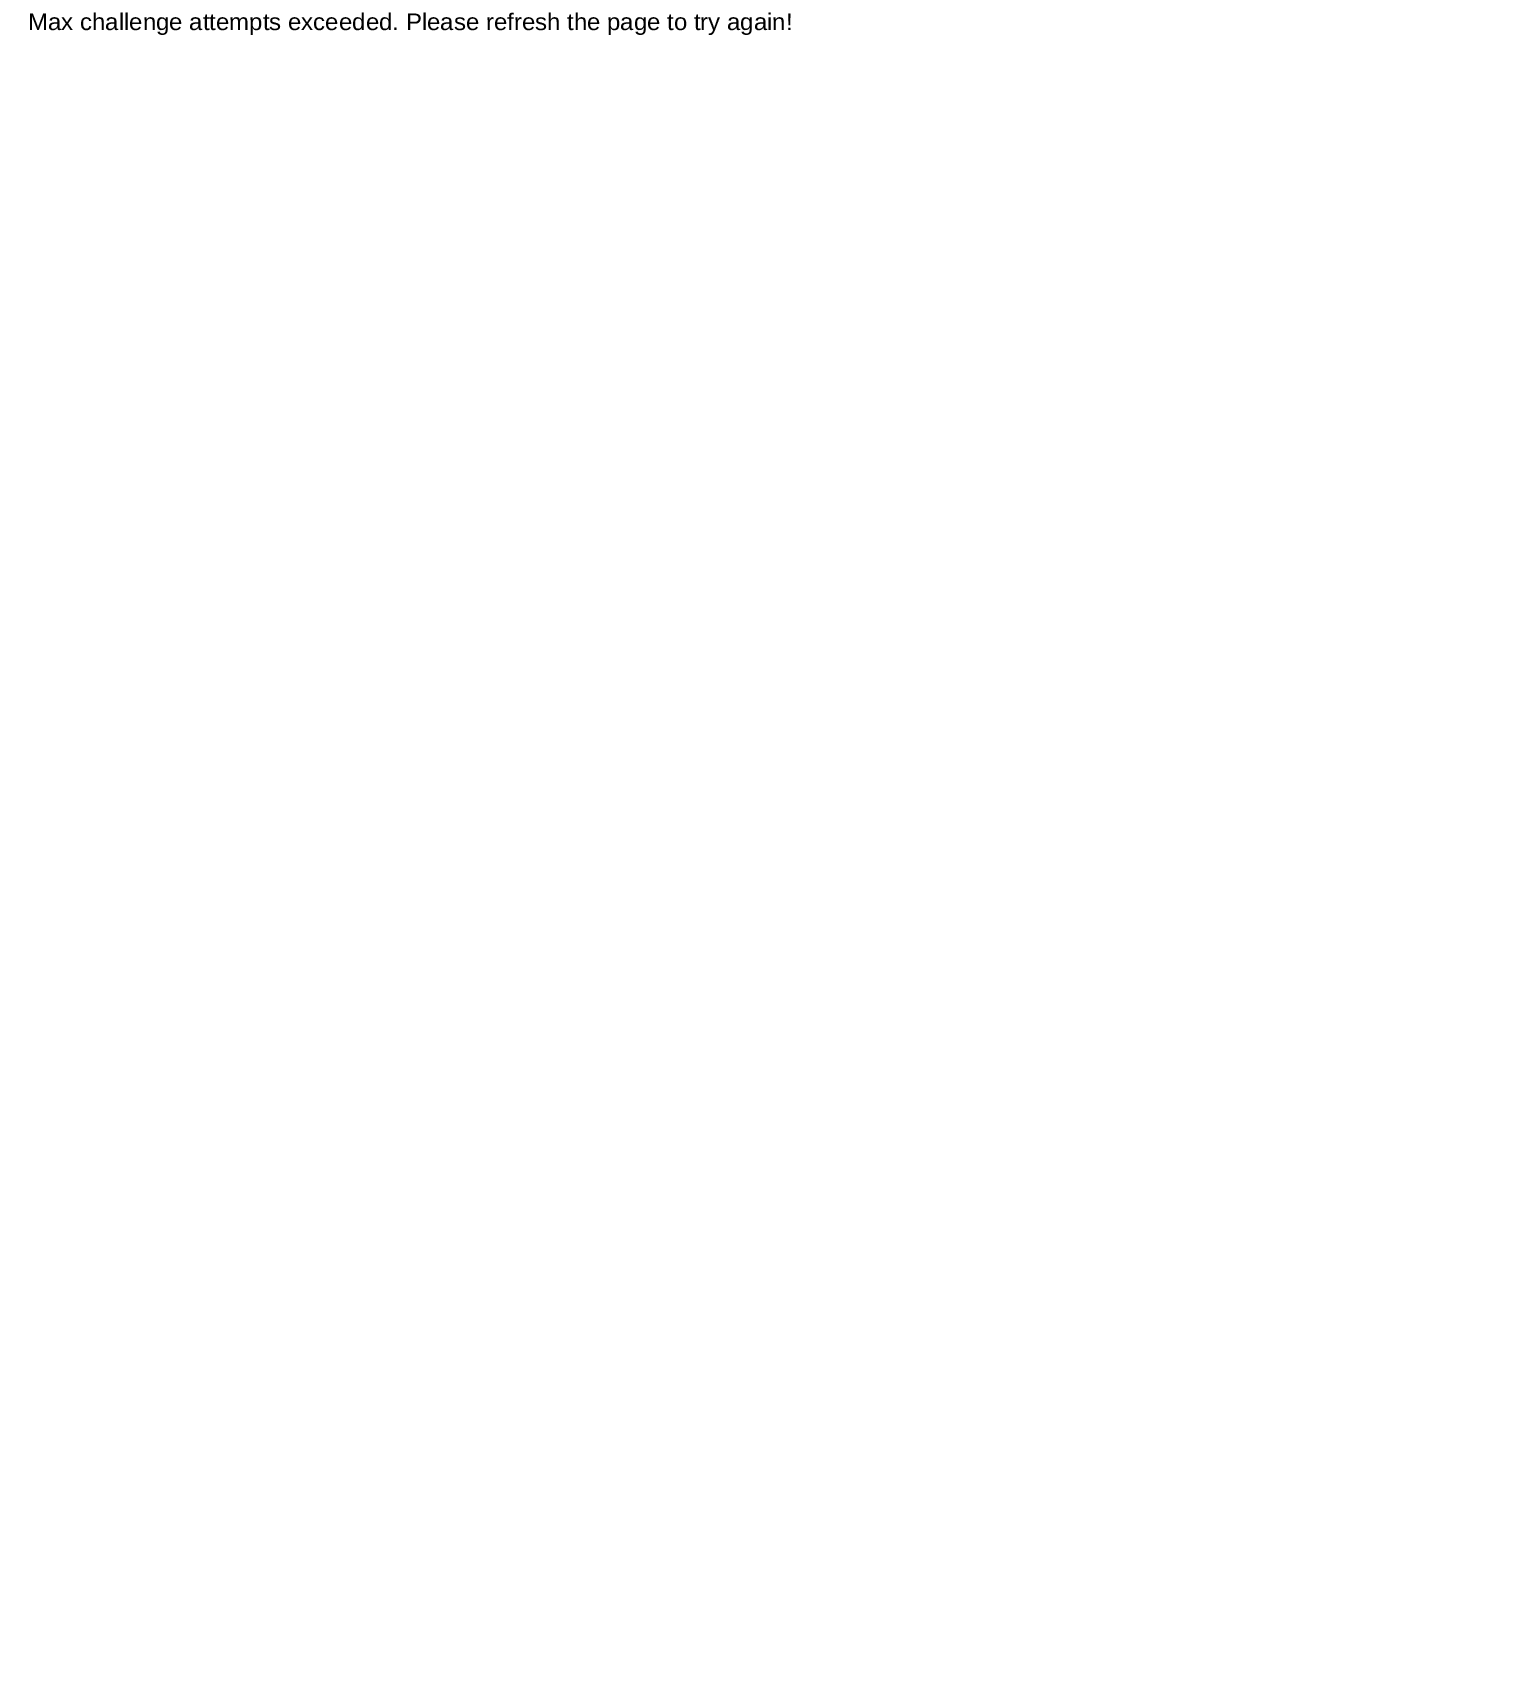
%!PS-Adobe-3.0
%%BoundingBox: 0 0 1527 1697
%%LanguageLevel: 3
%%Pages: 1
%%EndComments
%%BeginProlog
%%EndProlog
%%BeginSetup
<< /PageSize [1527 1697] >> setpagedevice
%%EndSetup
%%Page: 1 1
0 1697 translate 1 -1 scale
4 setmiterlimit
1 setgray
0 0 1527 1697 rectfill
/LiberationSans-Regular [24 0 0 -24 0 0] selectfont
0 setgray
28 30 moveto (Max challenge attempts exceeded. Please refresh the page to try again!) show
showpage
%%EOF
